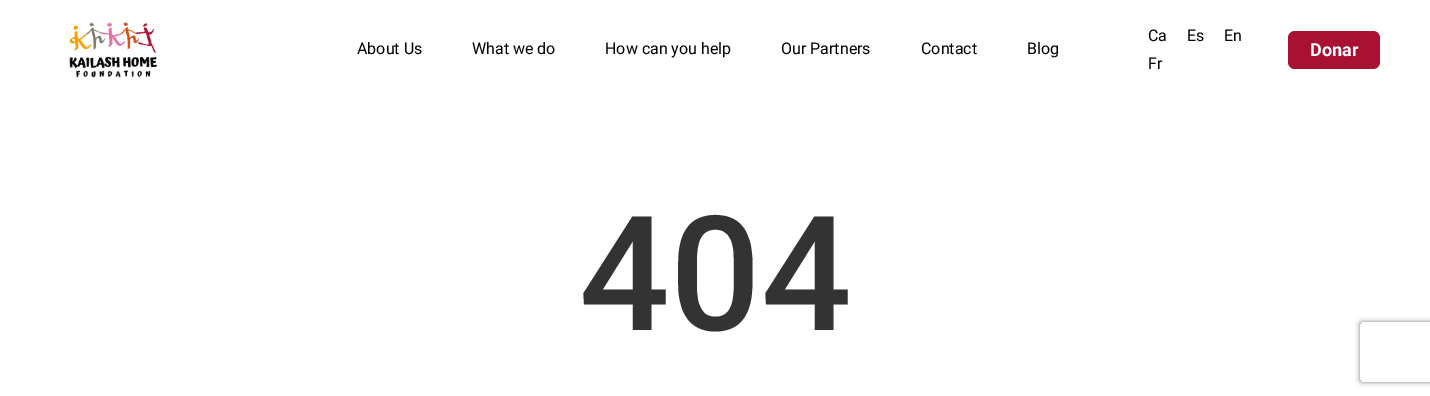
%!PS-Adobe-3.0
%%BoundingBox: 0 0 1430 396
%%LanguageLevel: 3
%%Pages: 1
%%EndComments
%%BeginProlog
/setalpha { dup .setfillconstantalpha .setstrokeconstantalpha } def
/rrect { 5 dict begin { /r /h /w /y /x } { exch def } forall
  x r add y moveto x w add y 2 copy h add r arct x w add y h add x 1 index r arct
  x y h add x y r arct x y 2 copy exch w add exch r arct closepath end } def
/softshadow { 12 dict begin { /a /b /q /h /w /y /x } { exch def } forall gsave /was 0 def
  9 -2 -9 { dup b mul 4 div /e exch def 1 sub .425 mul 2.718 exch exp 1 add a .99 .min exch div /now exch def
    1 1 now sub 1 was sub div sub setalpha /was now def
    w h .min e 2 mul add 0 gt { x e sub y e sub w e 2 mul add h e 2 mul add
      q e add b .6 mul add w h .min 2 div e add .min 0 .max rrect fill } if } for grestore end } def
/drawimage { 5 dict begin { /h /w /y /x /name } { exch def } forall
  gsave x y translate w h scale
  w h 8 [w 0 0 h 0 0] name (r) file false 3 colorimage grestore end } def
%%EndProlog
%%BeginSetup
<< /PageSize [1430 396] /PageUsesTransparency true >> setpagedevice
%%EndSetup
%%Page: 1 1
0 .pushpdf14devicefilter
0 396 translate 1 -1 scale
4 setmiterlimit
1 setgray
0 0 1430 396 rectfill
(images/1.raw) 69 22 88 56 drawimage
0.659 0.067 0.196 setrgbcolor
1288 31 92 38 7 rrect fill
gsave
newpath 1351 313 moveto 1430 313 lineto 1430 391 lineto 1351 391 lineto closepath 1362 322 moveto 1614 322 lineto 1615 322 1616 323 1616 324 curveto 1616 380 lineto 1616 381 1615 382 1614 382 curveto 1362 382 lineto 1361 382 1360 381 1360 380 curveto 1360 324 lineto 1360 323 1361 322 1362 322 curveto closepath eoclip newpath
0.502 setgray
1360 322 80 60 2 2.5 1 softshadow
grestore
/Roboto-Regular [16 0 0 -16 0 0] selectfont
0 setgray
357 54 moveto (About Us) show
472 54 moveto (What we do) show
605 54 moveto (How can you help) show
781 54 moveto (Our Partners) show
921 54 moveto (Contact) show
1027 54 moveto (Blog) show
1148 41 moveto (Ca) show
1187 41 moveto (Es) show
1224 41 moveto (En) show
1148 69 moveto (Fr) show
/Roboto-Bold [18 0 0 -18 0 0] selectfont
1 setgray
1310 56 moveto (Donar) show
/Roboto-Medium [160 0 0 -160 0 0] selectfont
0.2 setgray
579 330 moveto (404) show
.poppdf14devicefilter showpage
%%EOF
